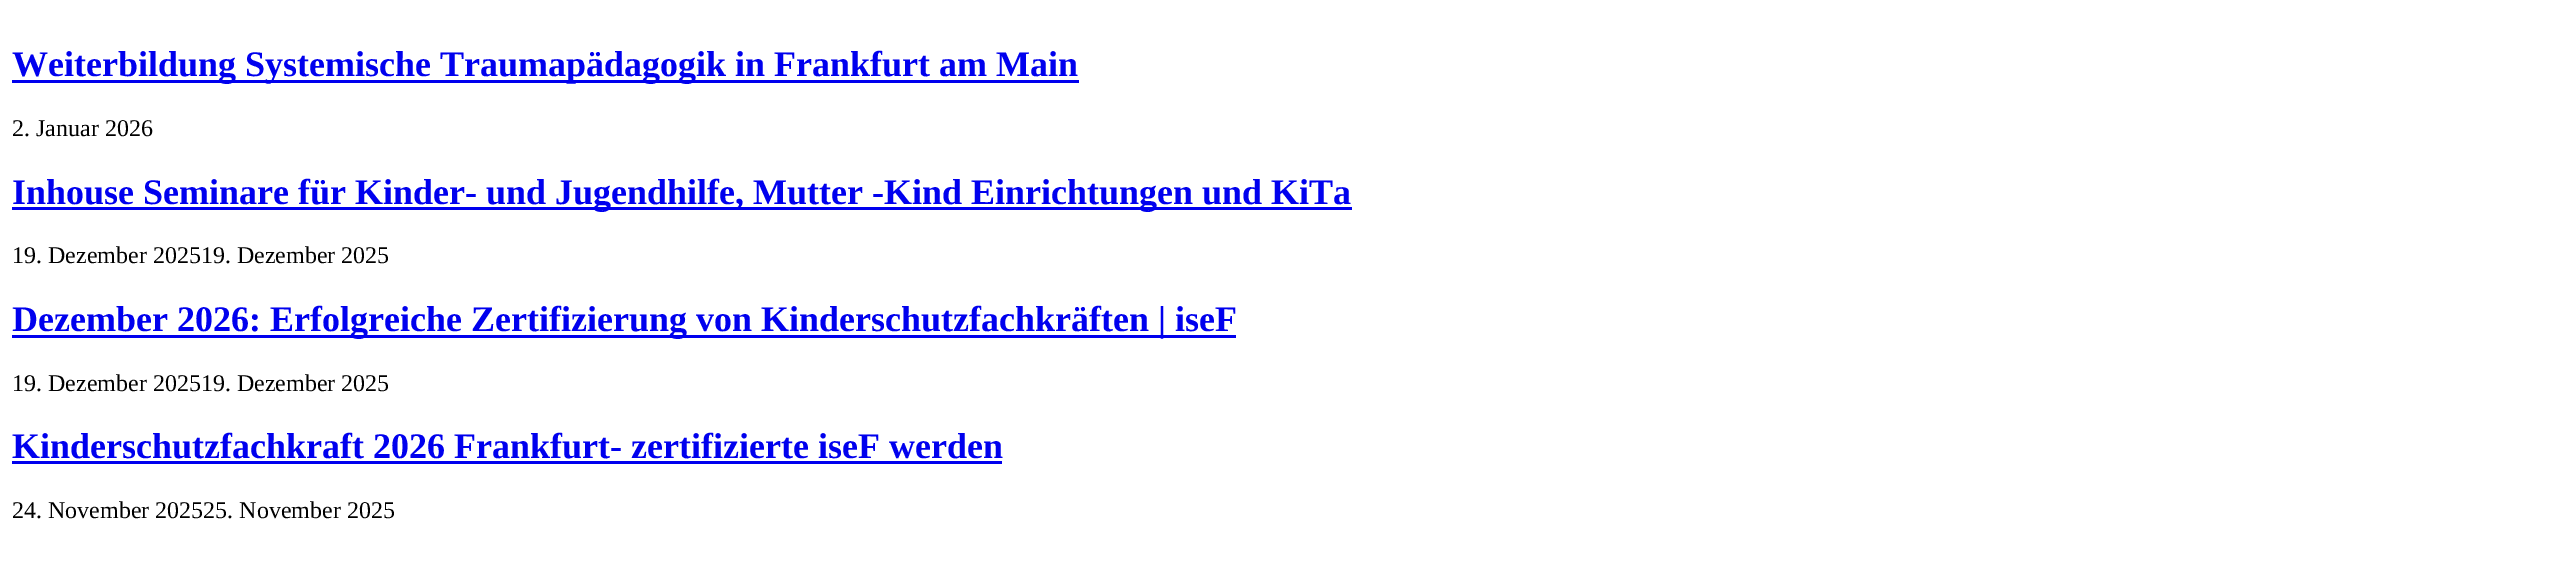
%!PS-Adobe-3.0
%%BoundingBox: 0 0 2552 561
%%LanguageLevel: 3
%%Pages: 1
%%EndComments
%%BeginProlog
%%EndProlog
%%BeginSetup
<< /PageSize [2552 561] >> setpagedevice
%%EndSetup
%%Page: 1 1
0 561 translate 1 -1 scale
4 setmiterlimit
1 setgray
0 0 2552 561 rectfill
0 0 0.933 setrgbcolor
12 80 1067 3 rectfill
12 207 1340 3 rectfill
12 335 1224 3 rectfill
12 461 990 3 rectfill
/LiberationSerif-Bold [36 0 0 -36 0 0] selectfont
12 76 moveto (Weiterbildung Systemische Traumapädagogik in Frankfurt am Main) show
/LiberationSerif-Regular [24 0 0 -24 0 0] selectfont
0 setgray
12 136 moveto (2. Januar 2026) show
/LiberationSerif-Bold [36 0 0 -36 0 0] selectfont
0 0 0.933 setrgbcolor
12 204 moveto (Inhouse Seminare für Kinder- und Jugendhilfe, Mutter -Kind Einrichtungen und KiTa) show
/LiberationSerif-Regular [24 0 0 -24 0 0] selectfont
0 setgray
12 263 moveto (19. Dezember 202519. Dezember 2025) show
/LiberationSerif-Bold [36 0 0 -36 0 0] selectfont
0 0 0.933 setrgbcolor
12 331 moveto (Dezember 2026: Erfolgreiche Zertifizierung von Kinderschutzfachkräften | iseF) show
/LiberationSerif-Regular [24 0 0 -24 0 0] selectfont
0 setgray
12 391 moveto (19. Dezember 202519. Dezember 2025) show
/LiberationSerif-Bold [36 0 0 -36 0 0] selectfont
0 0 0.933 setrgbcolor
12 458 moveto (Kinderschutzfachkraft 2026 Frankfurt- zertifizierte iseF werden) show
/LiberationSerif-Regular [24 0 0 -24 0 0] selectfont
0 setgray
12 518 moveto (24. November 202525. November 2025) show
showpage
%%EOF
